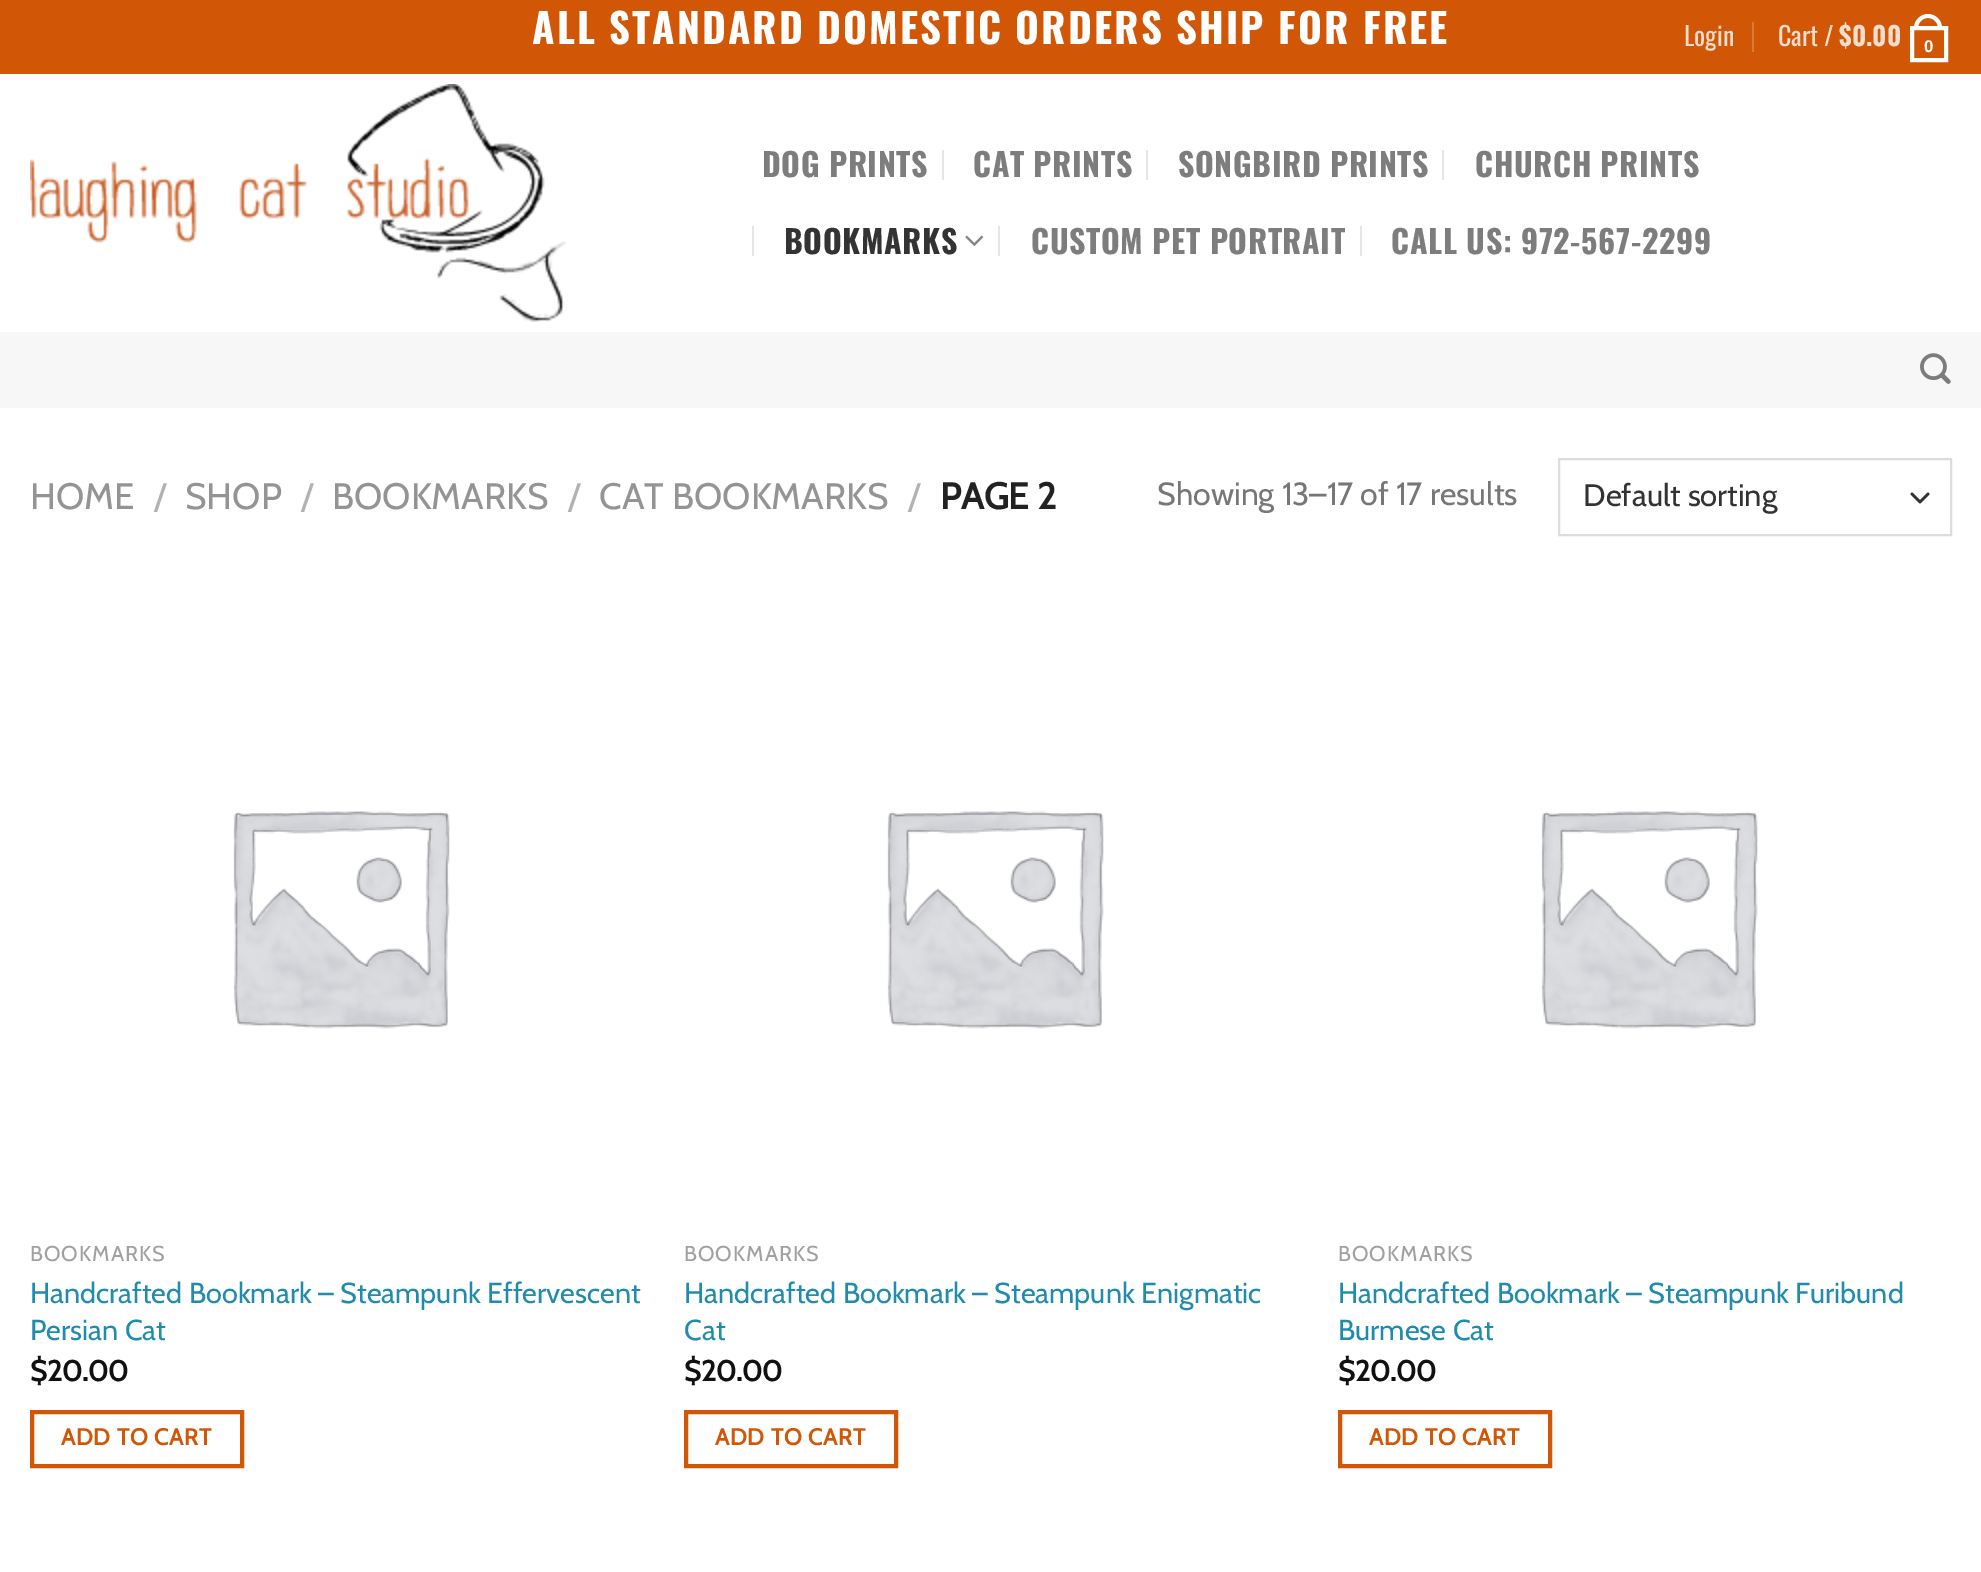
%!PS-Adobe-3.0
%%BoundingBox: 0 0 1981 1572
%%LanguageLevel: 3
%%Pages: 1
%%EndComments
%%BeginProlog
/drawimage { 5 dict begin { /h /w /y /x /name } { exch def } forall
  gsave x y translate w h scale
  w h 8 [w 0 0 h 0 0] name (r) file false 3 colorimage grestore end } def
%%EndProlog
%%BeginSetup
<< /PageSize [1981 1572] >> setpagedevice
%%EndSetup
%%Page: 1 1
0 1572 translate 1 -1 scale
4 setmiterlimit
1 setgray
0 0 1981 1572 rectfill
0.82 0.341 0.024 setrgbcolor
0 0 1981 74 rectfill
0.855 0.475 0.22 setrgbcolor
1752 22 2 30 rectfill
1 setgray
4 setlinewidth
1912 28 34 32 rectstroke
newpath 1928 14 moveto 1935.5 14 1942 20.5 1942 28 curveto 1942 30 lineto 1914 30 lineto 1914 28 lineto 1914 20.5 1920.5 14 1928 14 curveto closepath 1928 18 moveto 1933.5 18 1938 22.5 1938 28 curveto 1938 30 lineto 1918 30 lineto 1918 28 lineto 1918 22.5 1922.5 18 1928 18 curveto closepath eofill
(images/1.raw) 30 84 536 238 drawimage
0.902 setgray
942 150 2 30 rectfill
1146 150 2 30 rectfill
1442 150 2 30 rectfill
752 226 2 30 rectfill
(images/2.raw) 965 235 19 11 drawimage
998 226 2 30 rectfill
1360 226 2 30 rectfill
0.969 setgray
0 332 1981 76 rectfill
(images/3.raw) 1920 353 31 31 drawimage
0.2 setgray
2.7 setlinewidth
1 setlinecap
1 setlinejoin
newpath 1912 494 moveto 1920 502 lineto 1928 494 lineto stroke
0.867 setgray
2 setlinewidth
0 setlinecap
0 setlinejoin
1559 459 392 76 rectstroke
(images/4.raw) 233 811 217 218 drawimage
0.82 0.341 0.024 setrgbcolor
4 setlinewidth
32 1412 210 54 rectstroke
(images/4.raw) 887 811 217 218 drawimage
686 1412 210 54 rectstroke
(images/4.raw) 1541 811 217 218 drawimage
1340 1412 210 54 rectstroke
/Oswald-Bold [40.8 0 0 -40.8 0 0] selectfont
1 setgray
532 44 moveto 2.05 0 (ALL STANDARD DOMESTIC ORDERS SHIP FOR FREE) ashow
/Oswald-Regular [26 0 0 -26 0 0] selectfont
0.965 0.867 0.804 setrgbcolor
1684 46 moveto (Login) show
1778 46 moveto (Cart /) show
/Oswald-Bold [26 0 0 -26 0 0] selectfont
1839 46 moveto ($0.00) show
/LiberationSans-Bold [17 0 0 -17 0 0] selectfont
1 setgray
1924 52 moveto (0) show
/Oswald-Bold [32 0 0 -32 0 0] selectfont
0.49 setgray
762 177 moveto 0.6 0 (DOG PRINTS) ashow
973 177 moveto 0.6 0 (CAT PRINTS) ashow
1178 177 moveto 0.6 0 (SONGBIRD PRINTS) ashow
1475 177 moveto 0.6 0 (CHURCH PRINTS) ashow
0.2 setgray
784 254 moveto 0.6 0 (BOOKMARKS) ashow
0.49 setgray
1031 254 moveto 0.6 0 (CUSTOM PET PORTRAIT) ashow
1391 254 moveto 0.6 0 (CALL US: 972-567-2299) ashow
/Cabin-Regular [36.75 0 0 -36.75 0 0] selectfont
0.58 setgray
30 509 moveto (HOME) show
0.698 setgray
154 509 moveto (/) show
0.58 setgray
185 509 moveto (SHOP) show
0.698 setgray
301 509 moveto (/) show
0.58 setgray
332 509 moveto (BOOKMARKS) show
0.698 setgray
568 509 moveto (/) show
0.58 setgray
599 509 moveto (CAT BOOKMARKS) show
0.698 setgray
908 509 moveto (/) show
/Cabin-Bold [36.75 0 0 -36.75 0 0] selectfont
0.133 setgray
940 509 moveto (PAGE 2) show
/Cabin-Regular [32 0 0 -32 0 0] selectfont
0.467 setgray
1157 505 moveto (Showing 13–17 of 17 results) show
/Cabin-Regular [31 0 0 -31 0 0] selectfont
0.2 setgray
1583 506 moveto (Default sorting) show
/Cabin-Regular [21.5 0 0 -21.5 0 0] selectfont
0.627 setgray
30 1261 moveto 1 0 (BOOKMARKS) ashow
/Cabin-Regular [28.8 0 0 -28.8 0 0] selectfont
0.125 0.549 0.678 setrgbcolor
30 1303 moveto (Handcrafted Bookmark – Steampunk Effervescent) show
30 1340 moveto (Persian Cat) show
/Cabin-Bold [28.8 0 0 -28.8 0 0] selectfont
0.067 setgray
30 1381 moveto ($20.00) show
/Cabin-Bold [23 0 0 -23 0 0] selectfont
0.82 0.341 0.024 setrgbcolor
61 1445 moveto 0.75 0 (ADD TO CART) ashow
/Cabin-Regular [21.5 0 0 -21.5 0 0] selectfont
0.627 setgray
684 1261 moveto 1 0 (BOOKMARKS) ashow
/Cabin-Regular [28.8 0 0 -28.8 0 0] selectfont
0.125 0.549 0.678 setrgbcolor
684 1303 moveto (Handcrafted Bookmark – Steampunk Enigmatic) show
684 1340 moveto (Cat) show
/Cabin-Bold [28.8 0 0 -28.8 0 0] selectfont
0.067 setgray
684 1381 moveto ($20.00) show
/Cabin-Bold [23 0 0 -23 0 0] selectfont
0.82 0.341 0.024 setrgbcolor
715 1445 moveto 0.75 0 (ADD TO CART) ashow
/Cabin-Regular [21.5 0 0 -21.5 0 0] selectfont
0.627 setgray
1338 1261 moveto 1 0 (BOOKMARKS) ashow
/Cabin-Regular [28.8 0 0 -28.8 0 0] selectfont
0.125 0.549 0.678 setrgbcolor
1338 1303 moveto (Handcrafted Bookmark – Steampunk Furibund) show
1338 1340 moveto (Burmese Cat) show
/Cabin-Bold [28.8 0 0 -28.8 0 0] selectfont
0.067 setgray
1338 1381 moveto ($20.00) show
/Cabin-Bold [23 0 0 -23 0 0] selectfont
0.82 0.341 0.024 setrgbcolor
1369 1445 moveto 0.75 0 (ADD TO CART) ashow
showpage
%%EOF
